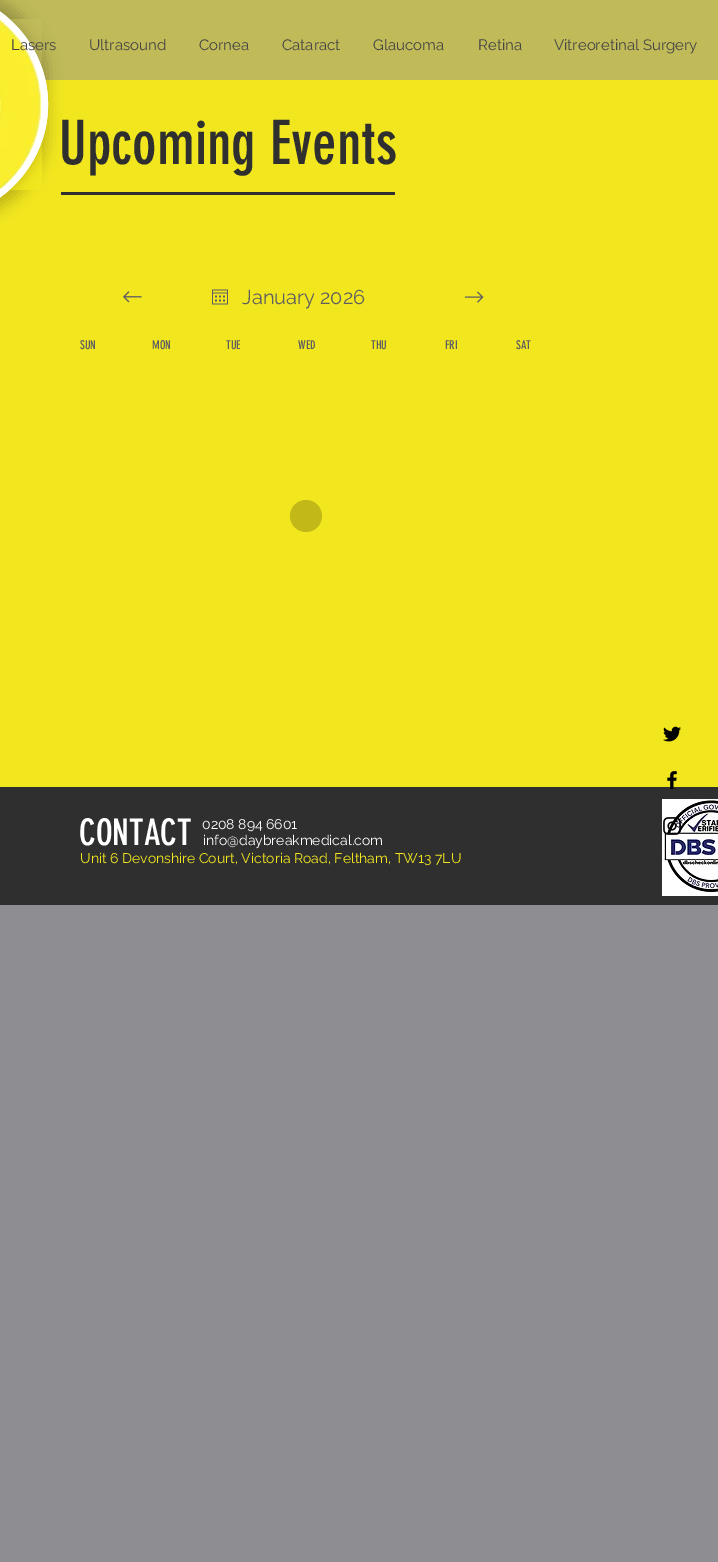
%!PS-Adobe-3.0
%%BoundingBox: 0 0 718 1562
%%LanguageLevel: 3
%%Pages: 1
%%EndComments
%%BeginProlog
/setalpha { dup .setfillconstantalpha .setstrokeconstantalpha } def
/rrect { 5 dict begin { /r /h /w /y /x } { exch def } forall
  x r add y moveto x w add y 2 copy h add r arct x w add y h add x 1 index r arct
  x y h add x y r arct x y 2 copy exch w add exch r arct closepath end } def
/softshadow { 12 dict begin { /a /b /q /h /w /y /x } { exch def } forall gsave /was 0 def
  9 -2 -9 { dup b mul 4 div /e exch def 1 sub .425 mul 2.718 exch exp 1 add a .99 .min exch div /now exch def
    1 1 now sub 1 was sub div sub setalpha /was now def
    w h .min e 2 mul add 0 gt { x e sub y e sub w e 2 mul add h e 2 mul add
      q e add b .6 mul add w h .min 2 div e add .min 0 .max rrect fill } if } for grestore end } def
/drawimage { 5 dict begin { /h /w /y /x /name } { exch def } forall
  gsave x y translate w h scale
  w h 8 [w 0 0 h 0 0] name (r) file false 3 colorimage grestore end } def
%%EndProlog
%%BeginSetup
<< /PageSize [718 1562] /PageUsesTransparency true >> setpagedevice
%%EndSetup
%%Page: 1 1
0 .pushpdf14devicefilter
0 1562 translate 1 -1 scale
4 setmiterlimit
0.557 0.553 0.569 setrgbcolor
0 0 718 1562 rectfill
0.753 0.729 0.345 setrgbcolor
0 0 718 80 rectfill
0.949 0.906 0.118 setrgbcolor
0 80 718 707 rectfill
0 setgray
-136 -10 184 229 114.5 7 0.2 softshadow
1 setgray
newpath -67.5 -10 moveto -3.5 -10 48 41.5 48 104.5 curveto 48 167.5 -3.5 219 -67.5 219 curveto -131.5 219 -183 167.5 -183 104.5 curveto -183 41.5 -131.5 -10 -67.5 -10 curveto closepath fill
6 setlinewidth
newpath -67.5 -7 moveto -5.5 -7 45 43 45 104.5 curveto 45 166 -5.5 216 -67.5 216 curveto -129.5 216 -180 166 -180 104.5 curveto -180 43 -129.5 -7 -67.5 -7 curveto closepath stroke
(images/1.raw) 0 19 42 171 drawimage
0.184 0.184 0.188 setrgbcolor
61 192 334 3 rectfill
(images/2.raw) 123 291 19 12 drawimage
(images/3.raw) 212 289 16 16 drawimage
(images/4.raw) 464 291 20 12 drawimage
0.761 0.725 0.094 setrgbcolor
newpath 306 516 16 0 360 arc closepath fill
(images/5.raw) 663 726 18 16 drawimage
0.184 0.184 0.188 setrgbcolor
0 787 718 118 rectfill
(images/6.raw) 667 770 10 20 drawimage
(images/8.raw) 662 799 56 97 drawimage
(images/7.raw) 663 817 18 18 drawimage
/Raleway-Regular [15 0 0 -15 0 0] selectfont
0.267 setgray
11 50 moveto (Lasers) show
89 50 moveto (Ultrasound) show
199 50 moveto (Cornea) show
282 50 moveto (Cataract) show
373 50 moveto (Glaucoma) show
478 50 moveto (Retina) show
554 50 moveto (Vitreoretinal Surgery) show
/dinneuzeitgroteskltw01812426-Regular [60 0 0 -60 0 0] selectfont
0.184 0.184 0.188 setrgbcolor
59 164 moveto (Upcoming Events) show
/Raleway-Regular [20 0 0 -20 0 0] selectfont
0.373 0.369 0.38 setrgbcolor
242 304 moveto (January 2026) show
/dinneuzeitgroteskltw01812426-Regular [12 0 0 -12 0 0] selectfont
80 349 moveto (SUN) show
152 349 moveto (MON) show
226 349 moveto (TUE) show
298 349 moveto (WED) show
371 349 moveto (THU) show
445 349 moveto (FRI) show
516 349 moveto (SAT) show
/dinneuzeitgroteskltw01812426-Regular [36 0 0 -36 0 0] selectfont
1 setgray
79 845 moveto (CONTACT) show
/Raleway-Regular [14 0 0 -14 0 0] selectfont
202 829 moveto (0208 894 6601) show
203 845 moveto (info@daybreakmedical.com) show
0.949 0.906 0.118 setrgbcolor
80 863 moveto (Unit 6 Devonshire Court, Victoria Road, Feltham, TW13 7LU) show
.poppdf14devicefilter showpage
%%EOF
